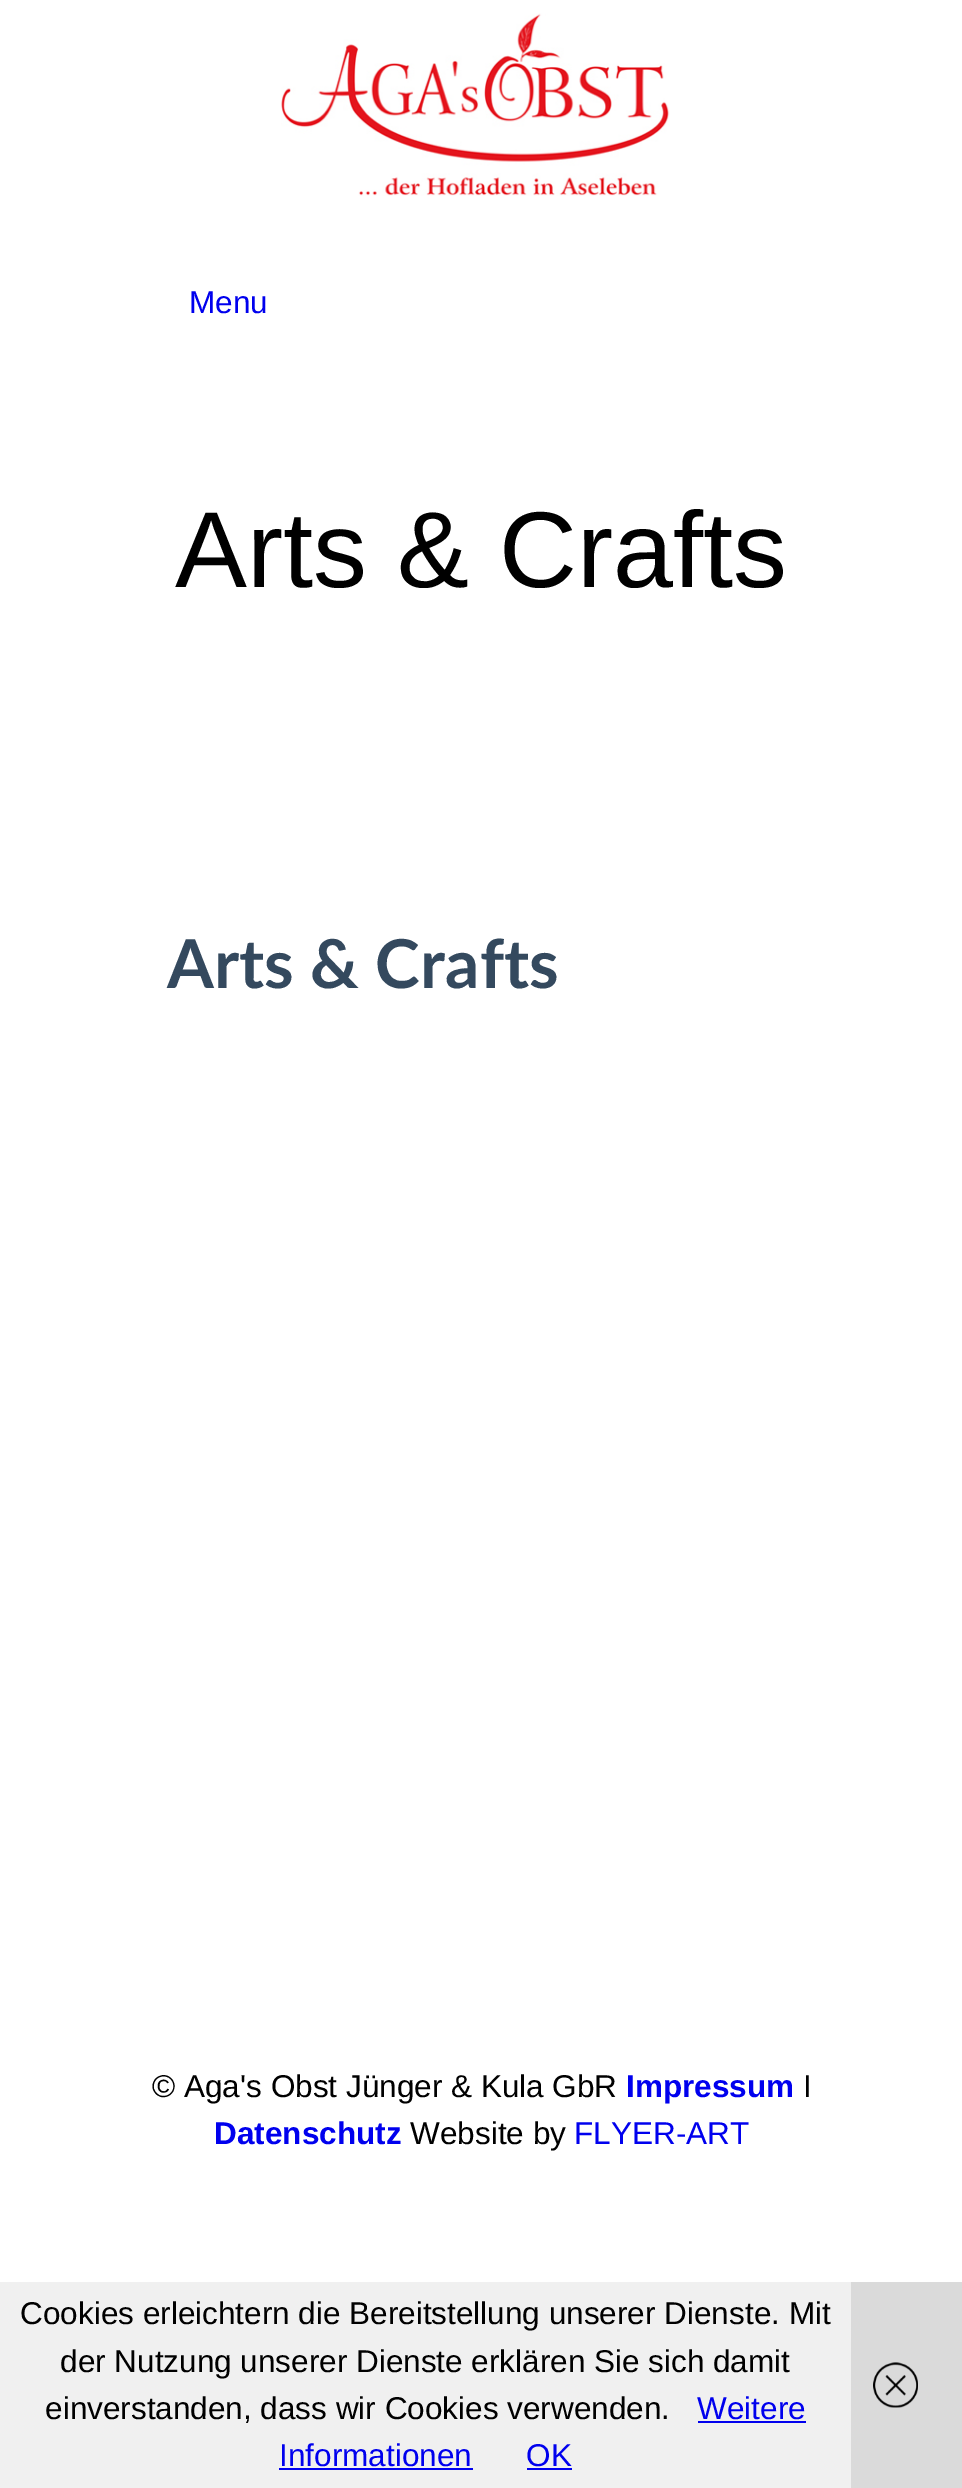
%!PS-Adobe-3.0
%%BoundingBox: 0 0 962 2488
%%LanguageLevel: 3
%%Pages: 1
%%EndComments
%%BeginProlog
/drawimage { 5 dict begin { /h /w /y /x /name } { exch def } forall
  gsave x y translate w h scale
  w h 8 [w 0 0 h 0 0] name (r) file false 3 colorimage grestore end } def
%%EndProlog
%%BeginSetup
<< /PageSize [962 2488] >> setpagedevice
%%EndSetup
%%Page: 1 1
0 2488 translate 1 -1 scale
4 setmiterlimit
1 setgray
0 0 962 2488 rectfill
(images/1.raw) 281 13 389 183 drawimage
0.941 setgray
0 2282 851 206 rectfill
0 0 0.933 setrgbcolor
698 2421 108 2 rectfill
279 2468 194 2 rectfill
527 2468 45 2 rectfill
0.855 setgray
851 2282 111 206 rectfill
(images/2.raw) 873 2362 45 46 drawimage
/LiberationSans-Regular [31.5 0 0 -31.5 0 0] selectfont
0 0 0.933 setrgbcolor
189 313 moveto (Menu) show
/LiberationSans-Regular [108 0 0 -108 0 0] selectfont
0 setgray
175 587 moveto (Arts & Crafts) show
/Lato-Bold [67.5 0 0 -67.5 0 0] selectfont
0.204 0.286 0.369 setrgbcolor
167 988 moveto (Arts & Crafts) show
/LiberationSans-Regular [31.5 0 0 -31.5 0 0] selectfont
0 setgray
152 2097 moveto (© Aga's Obst Jünger & Kula GbR) show
/LiberationSans-Bold [31.5 0 0 -31.5 0 0] selectfont
0 0 0.933 setrgbcolor
626 2097 moveto (Impressum) show
/LiberationSans-Regular [31.5 0 0 -31.5 0 0] selectfont
0 setgray
803 2097 moveto (I) show
/LiberationSans-Bold [31.5 0 0 -31.5 0 0] selectfont
0 0 0.933 setrgbcolor
214 2144 moveto (Datenschutz) show
/LiberationSans-Regular [31.5 0 0 -31.5 0 0] selectfont
0 setgray
410 2144 moveto (Website by) show
0 0 0.933 setrgbcolor
574 2144 moveto (FLYER-ART) show
0 setgray
20 2324 moveto (Cookies erleichtern die Bereitstellung unserer Dienste. Mit) show
60 2372 moveto (der Nutzung unserer Dienste erklären Sie sich damit) show
45 2419 moveto (einverstanden, dass wir Cookies verwenden.) show
0 0 0.933 setrgbcolor
697 2419 moveto (Weitere) show
279 2466 moveto (Informationen) show
526 2466 moveto (OK) show
showpage
%%EOF
